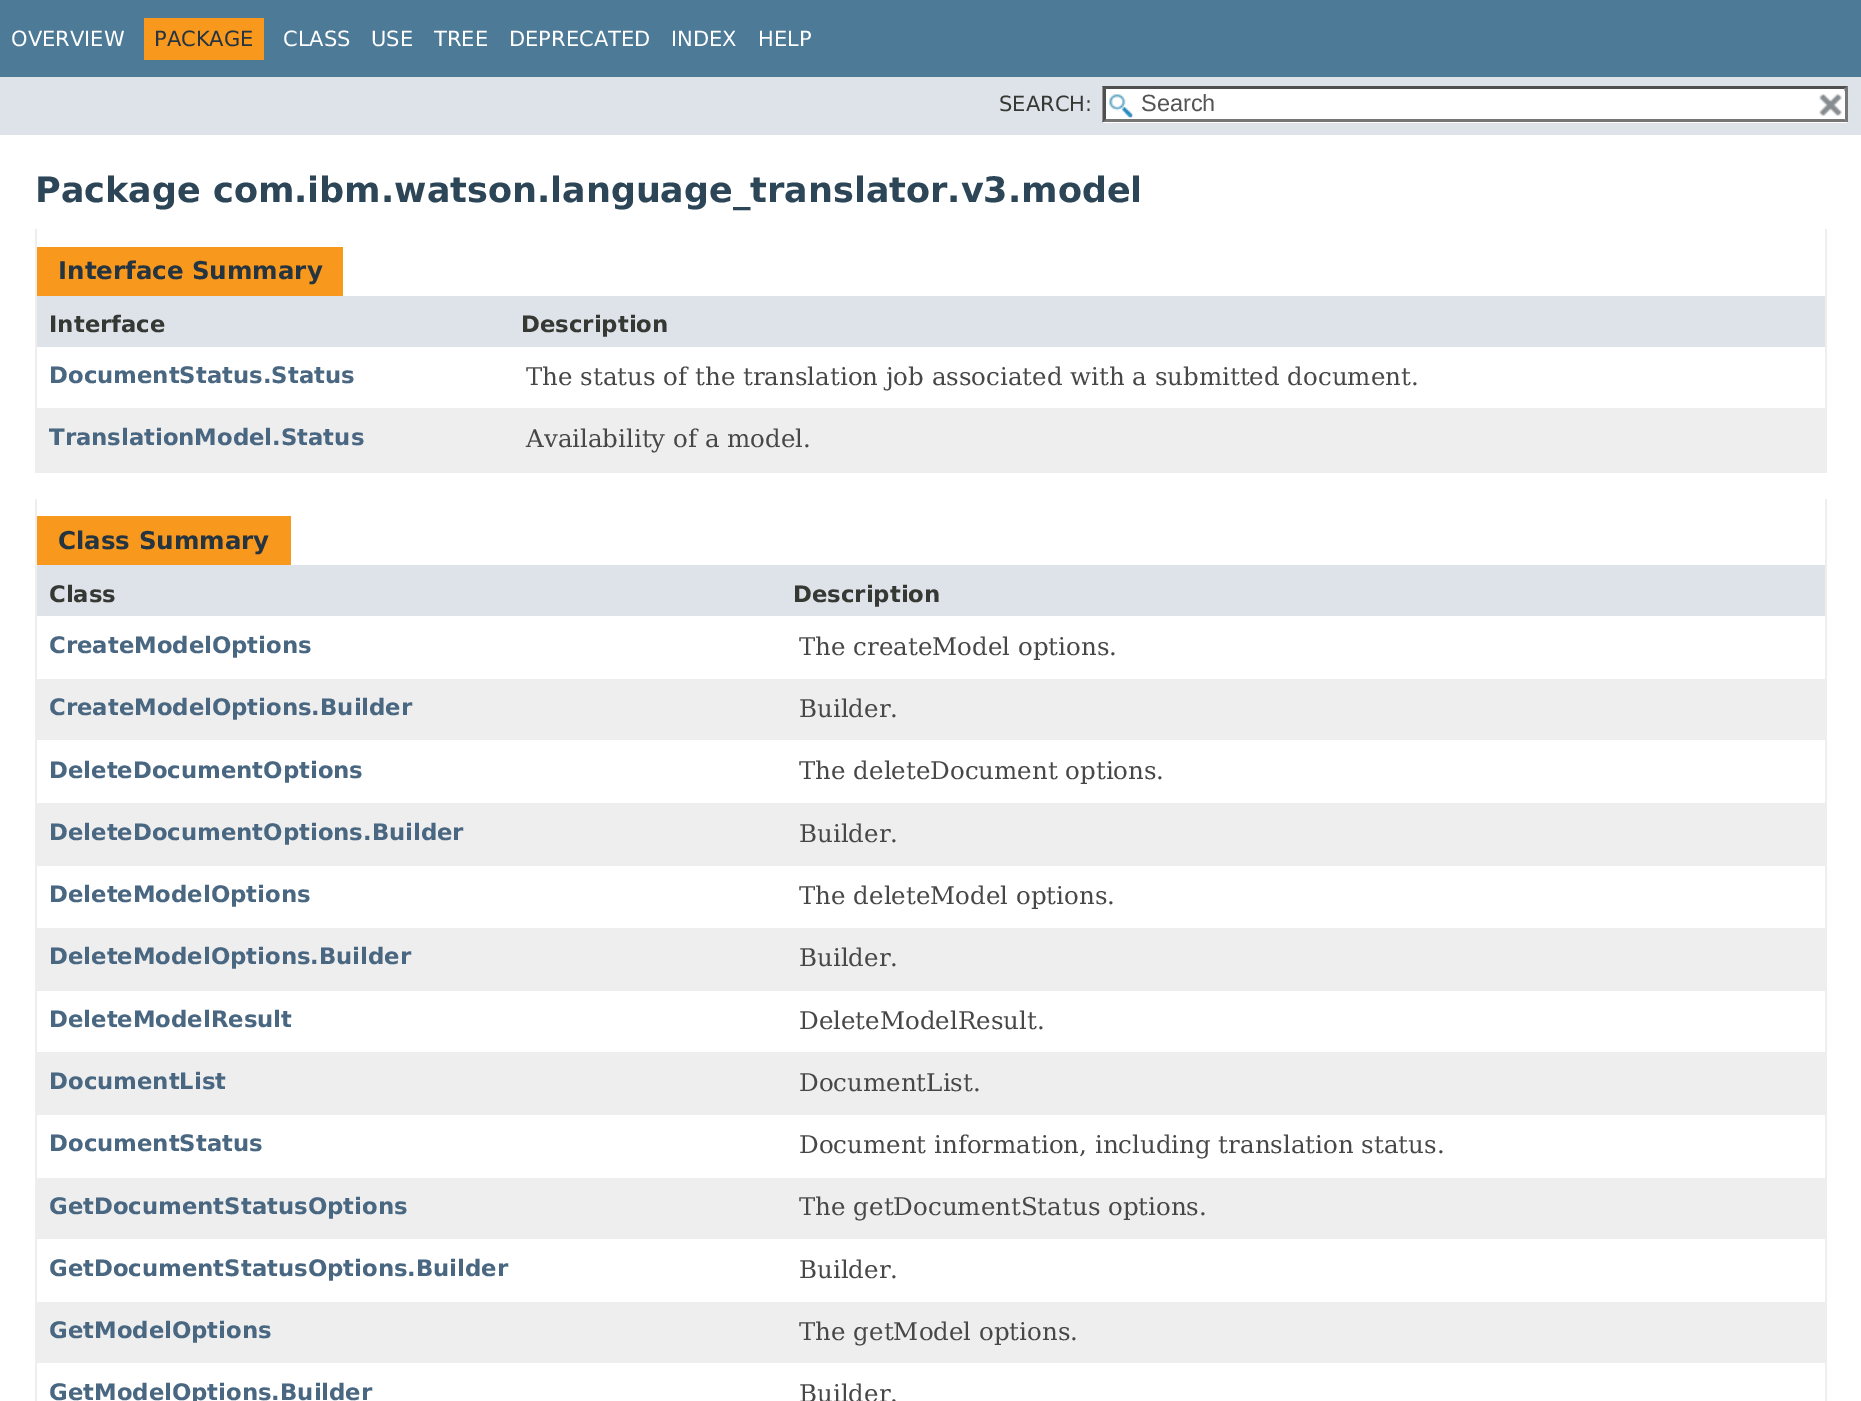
%!PS-Adobe-3.0
%%BoundingBox: 0 0 1861 1401
%%LanguageLevel: 3
%%Pages: 1
%%EndComments
%%BeginProlog
/drawimage { 5 dict begin { /h /w /y /x /name } { exch def } forall
  gsave x y translate w h scale
  w h 8 [w 0 0 h 0 0] name (r) file false 3 colorimage grestore end } def
%%EndProlog
%%BeginSetup
<< /PageSize [1861 1401] >> setpagedevice
%%EndSetup
%%Page: 1 1
0 1401 translate 1 -1 scale
4 setmiterlimit
1 setgray
0 0 1861 1401 rectfill
0.302 0.478 0.592 setrgbcolor
0 0 1861 77 rectfill
0.973 0.596 0.114 setrgbcolor
144 18 120 42 rectfill
0.871 0.89 0.914 setrgbcolor
0 77 1861 58 rectfill
1 setgray
1103 86 745 37 rectfill
(images/1.raw) 1109 94 24 24 drawimage
0.31 setgray
newpath 1102 86 moveto 1848 86 lineto 1844 89 lineto 1106 89 lineto closepath fill
0.463 setgray
newpath 1848 86 moveto 1848 122.5 lineto 1844.5 119 lineto 1844.5 89 lineto closepath fill
newpath 1848 122 moveto 1102 122 lineto 1106 119 lineto 1844 119 lineto closepath fill
0.31 setgray
newpath 1102.5 122.5 moveto 1102.5 86 lineto 1106 89 lineto 1106 119 lineto closepath fill
1 setgray
1844 91 1 28 rectfill
(images/2.raw) 1819 94 23 22 drawimage
0.933 setgray
1825 229 2 244 rectfill
35 471 1792 2 rectfill
35 229 2 244 rectfill
0.973 0.596 0.114 setrgbcolor
37 247 306 49 rectfill
0.871 0.89 0.914 setrgbcolor
37 296 1788 51 rectfill
0.933 0.933 0.937 setrgbcolor
37 408 1788 63 rectfill
0.933 setgray
1825 499 2 902 rectfill
35 499 2 902 rectfill
0.973 0.596 0.114 setrgbcolor
37 516 254 49 rectfill
0.871 0.89 0.914 setrgbcolor
37 565 1788 51 rectfill
0.933 0.933 0.937 setrgbcolor
37 679 1788 61 rectfill
37 803 1788 63 rectfill
37 928 1788 63 rectfill
37 1052 1788 63 rectfill
37 1178 1788 61 rectfill
37 1302 1788 61 rectfill
/DejaVuSans-Regular [21 0 0 -21 0 0] selectfont
1 setgray
11 46 moveto (OVERVIEW) show
0.145 0.204 0.255 setrgbcolor
154 46 moveto (PACKAGE) show
1 setgray
283 46 moveto (CLASS) show
371 46 moveto (USE) show
434 46 moveto (TREE) show
509 46 moveto (DEPRECATED) show
671 46 moveto (INDEX) show
758 46 moveto (HELP) show
0.208 0.22 0.2 setrgbcolor
999 111 moveto (SEARCH:) show
/LiberationSans-Regular [23.5 0 0 -23.5 0 0] selectfont
0.329 setgray
1141 111 moveto (Search) show
/DejaVuSans-Bold [35 0 0 -35 0 0] selectfont
0.173 0.271 0.341 setrgbcolor
35 202 moveto (Package com.ibm.watson.language_translator.v3.model) show
/DejaVuSans-Bold [24.5 0 0 -24.5 0 0] selectfont
0.145 0.204 0.255 setrgbcolor
58 279 moveto (Interface Summary) show
/DejaVuSans-Bold [22.75 0 0 -22.75 0 0] selectfont
0.208 0.22 0.2 setrgbcolor
49 332 moveto (Interface) show
521 332 moveto (Description) show
0.29 0.404 0.51 setrgbcolor
49 383 moveto (DocumentStatus.Status) show
/DejaVuSerif-Regular [24.5 0 0 -24.5 0 0] selectfont
0.278 setgray
526 385 moveto (The status of the translation job associated with a submitted document.) show
/DejaVuSans-Bold [22.75 0 0 -22.75 0 0] selectfont
0.29 0.404 0.51 setrgbcolor
49 445 moveto (TranslationModel.Status) show
/DejaVuSerif-Regular [24.5 0 0 -24.5 0 0] selectfont
0.278 setgray
526 447 moveto (Availability of a model.) show
/DejaVuSans-Bold [24.5 0 0 -24.5 0 0] selectfont
0.145 0.204 0.255 setrgbcolor
58 549 moveto (Class Summary) show
/DejaVuSans-Bold [22.75 0 0 -22.75 0 0] selectfont
0.208 0.22 0.2 setrgbcolor
49 602 moveto (Class) show
793 602 moveto (Description) show
0.29 0.404 0.51 setrgbcolor
49 653 moveto (CreateModelOptions) show
/DejaVuSerif-Regular [24.5 0 0 -24.5 0 0] selectfont
0.278 setgray
799 655 moveto (The createModel options.) show
/DejaVuSans-Bold [22.75 0 0 -22.75 0 0] selectfont
0.29 0.404 0.51 setrgbcolor
49 715 moveto (CreateModelOptions.Builder) show
/DejaVuSerif-Regular [24.5 0 0 -24.5 0 0] selectfont
0.278 setgray
799 717 moveto (Builder.) show
/DejaVuSans-Bold [22.75 0 0 -22.75 0 0] selectfont
0.29 0.404 0.51 setrgbcolor
49 778 moveto (DeleteDocumentOptions) show
/DejaVuSerif-Regular [24.5 0 0 -24.5 0 0] selectfont
0.278 setgray
799 779 moveto (The deleteDocument options.) show
/DejaVuSans-Bold [22.75 0 0 -22.75 0 0] selectfont
0.29 0.404 0.51 setrgbcolor
49 840 moveto (DeleteDocumentOptions.Builder) show
/DejaVuSerif-Regular [24.5 0 0 -24.5 0 0] selectfont
0.278 setgray
799 842 moveto (Builder.) show
/DejaVuSans-Bold [22.75 0 0 -22.75 0 0] selectfont
0.29 0.404 0.51 setrgbcolor
49 902 moveto (DeleteModelOptions) show
/DejaVuSerif-Regular [24.5 0 0 -24.5 0 0] selectfont
0.278 setgray
799 904 moveto (The deleteModel options.) show
/DejaVuSans-Bold [22.75 0 0 -22.75 0 0] selectfont
0.29 0.404 0.51 setrgbcolor
49 964 moveto (DeleteModelOptions.Builder) show
/DejaVuSerif-Regular [24.5 0 0 -24.5 0 0] selectfont
0.278 setgray
799 966 moveto (Builder.) show
/DejaVuSans-Bold [22.75 0 0 -22.75 0 0] selectfont
0.29 0.404 0.51 setrgbcolor
49 1027 moveto (DeleteModelResult) show
/DejaVuSerif-Regular [24.5 0 0 -24.5 0 0] selectfont
0.278 setgray
799 1029 moveto (DeleteModelResult.) show
/DejaVuSans-Bold [22.75 0 0 -22.75 0 0] selectfont
0.29 0.404 0.51 setrgbcolor
49 1089 moveto (DocumentList) show
/DejaVuSerif-Regular [24.5 0 0 -24.5 0 0] selectfont
0.278 setgray
799 1091 moveto (DocumentList.) show
/DejaVuSans-Bold [22.75 0 0 -22.75 0 0] selectfont
0.29 0.404 0.51 setrgbcolor
49 1151 moveto (DocumentStatus) show
/DejaVuSerif-Regular [24.5 0 0 -24.5 0 0] selectfont
0.278 setgray
799 1153 moveto (Document information, including translation status.) show
/DejaVuSans-Bold [22.75 0 0 -22.75 0 0] selectfont
0.29 0.404 0.51 setrgbcolor
49 1214 moveto (GetDocumentStatusOptions) show
/DejaVuSerif-Regular [24.5 0 0 -24.5 0 0] selectfont
0.278 setgray
799 1215 moveto (The getDocumentStatus options.) show
/DejaVuSans-Bold [22.75 0 0 -22.75 0 0] selectfont
0.29 0.404 0.51 setrgbcolor
49 1276 moveto (GetDocumentStatusOptions.Builder) show
/DejaVuSerif-Regular [24.5 0 0 -24.5 0 0] selectfont
0.278 setgray
799 1278 moveto (Builder.) show
/DejaVuSans-Bold [22.75 0 0 -22.75 0 0] selectfont
0.29 0.404 0.51 setrgbcolor
49 1338 moveto (GetModelOptions) show
/DejaVuSerif-Regular [24.5 0 0 -24.5 0 0] selectfont
0.278 setgray
799 1340 moveto (The getModel options.) show
/DejaVuSans-Bold [22.75 0 0 -22.75 0 0] selectfont
0.29 0.404 0.51 setrgbcolor
49 1400 moveto (GetModelOptions.Builder) show
/DejaVuSerif-Regular [24.5 0 0 -24.5 0 0] selectfont
0.278 setgray
799 1402 moveto (Builder.) show
showpage
%%EOF
